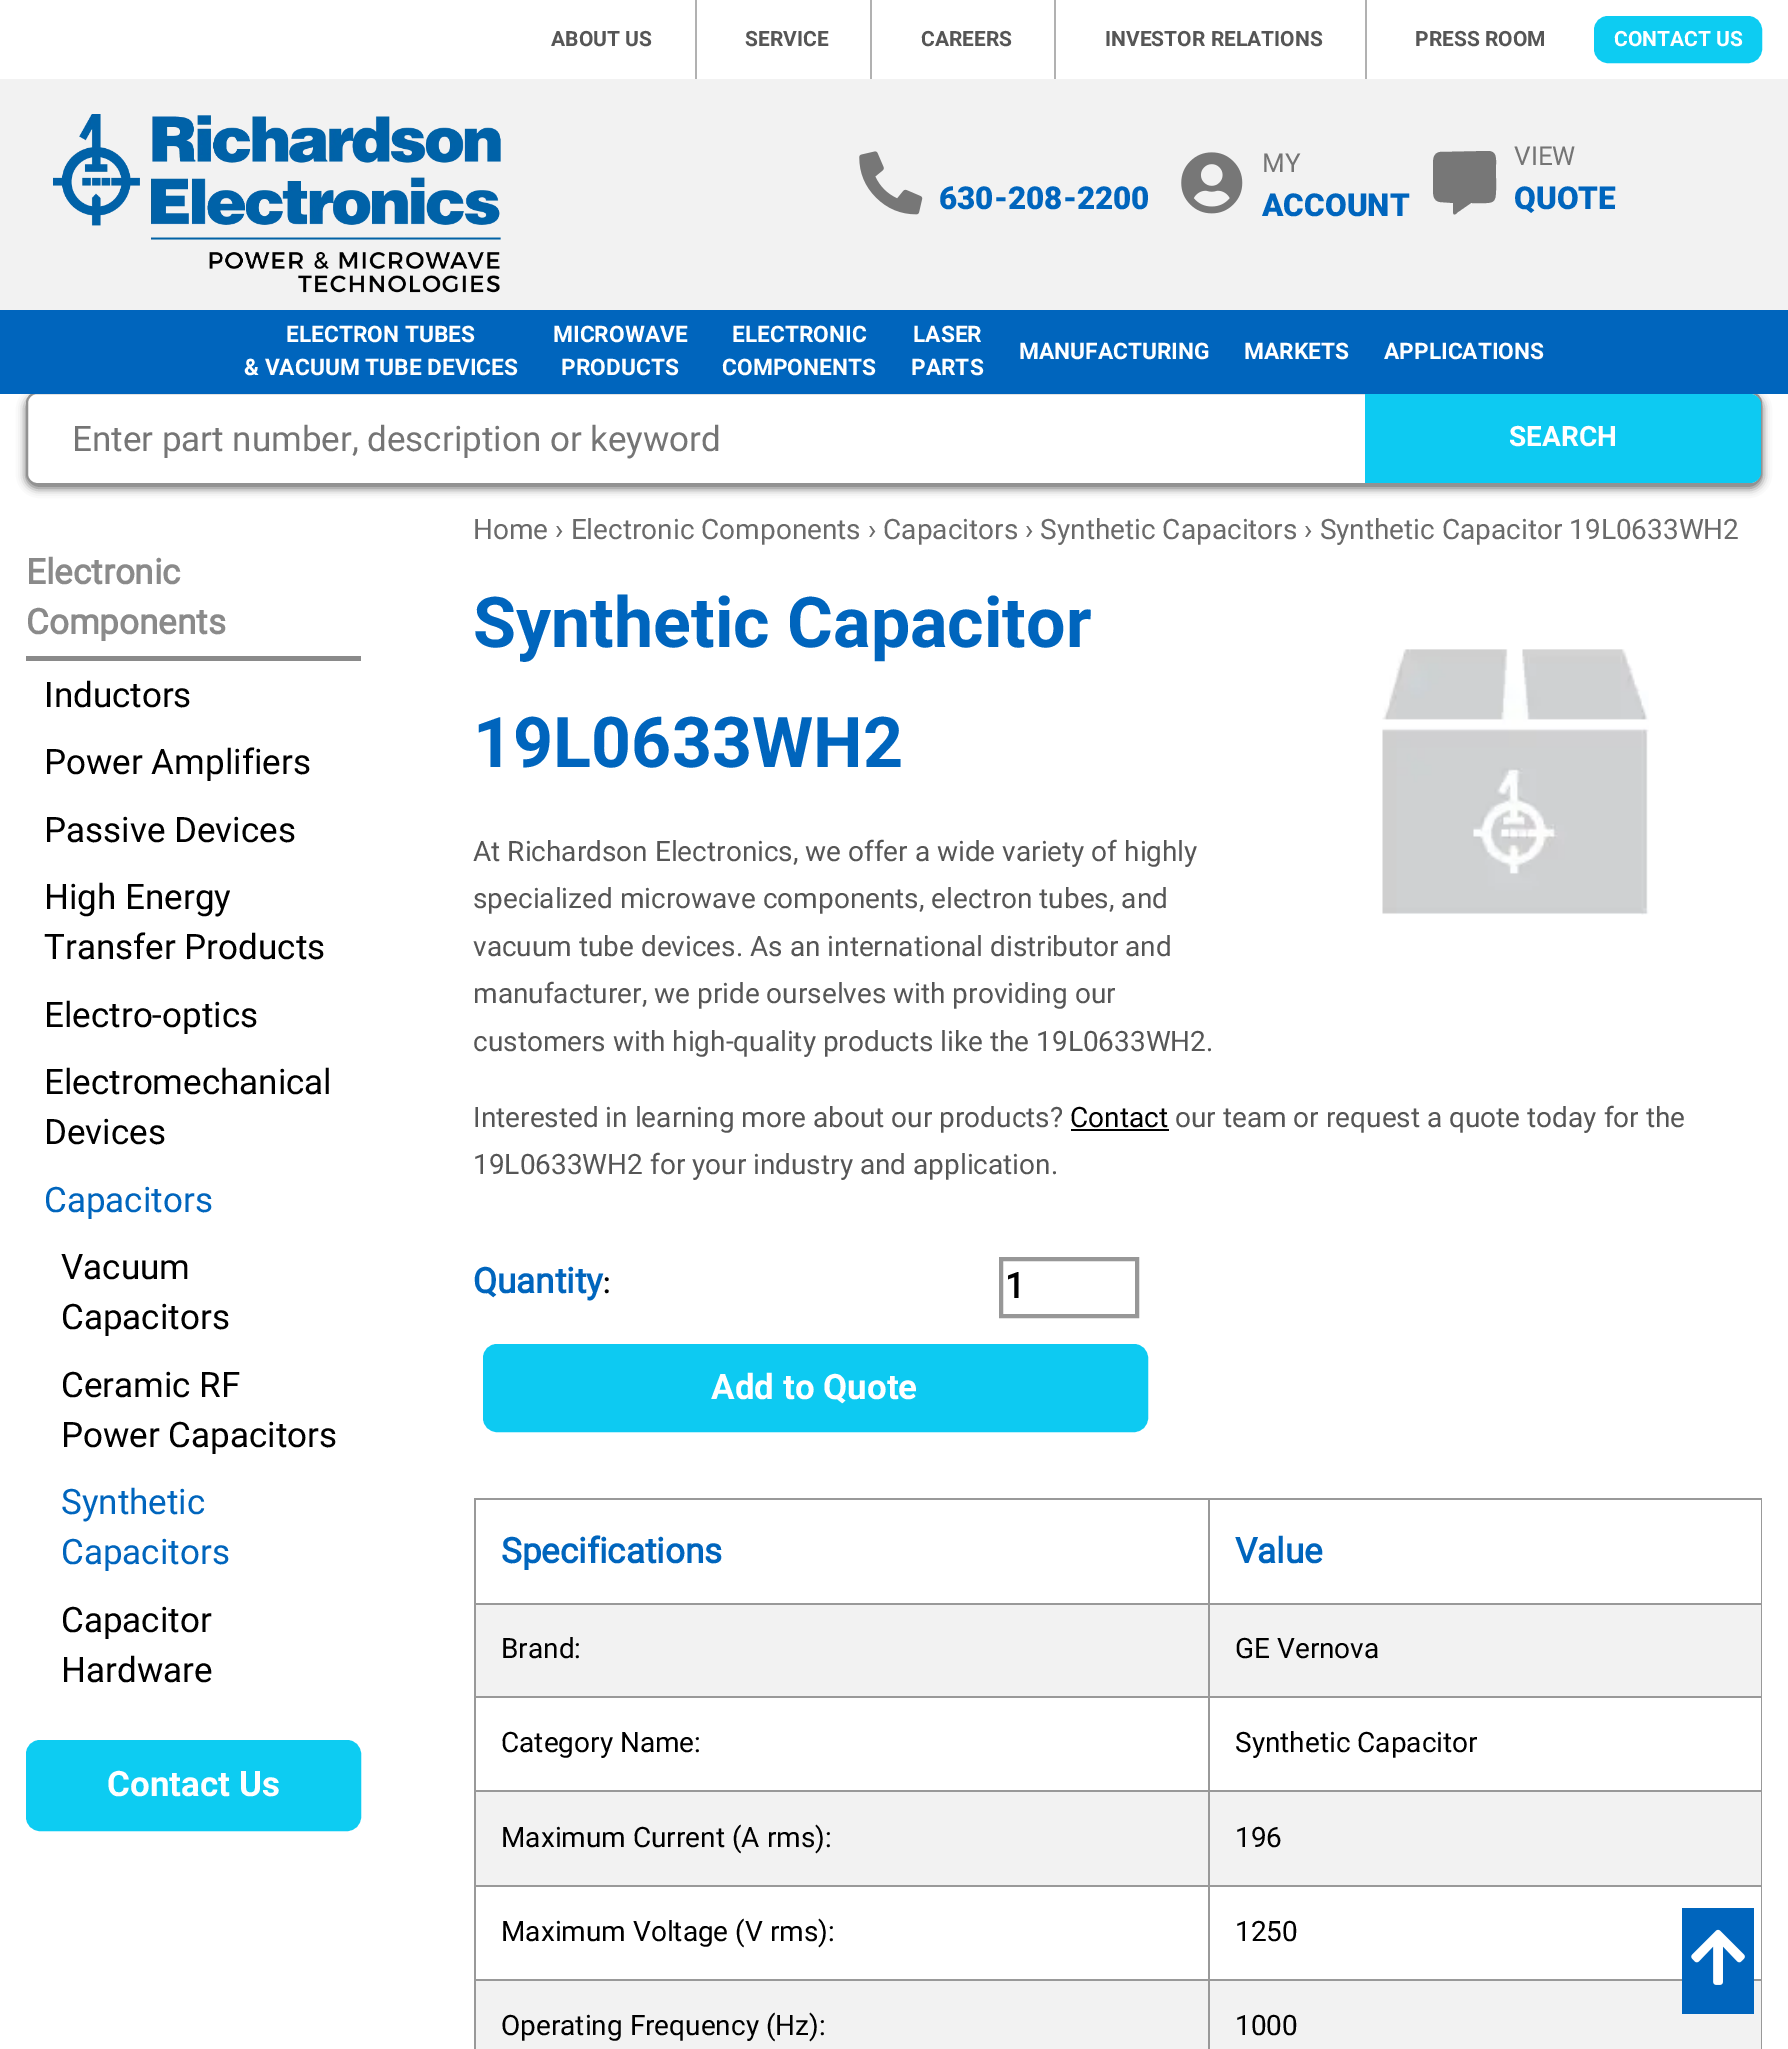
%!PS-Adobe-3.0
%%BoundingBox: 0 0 1788 2049
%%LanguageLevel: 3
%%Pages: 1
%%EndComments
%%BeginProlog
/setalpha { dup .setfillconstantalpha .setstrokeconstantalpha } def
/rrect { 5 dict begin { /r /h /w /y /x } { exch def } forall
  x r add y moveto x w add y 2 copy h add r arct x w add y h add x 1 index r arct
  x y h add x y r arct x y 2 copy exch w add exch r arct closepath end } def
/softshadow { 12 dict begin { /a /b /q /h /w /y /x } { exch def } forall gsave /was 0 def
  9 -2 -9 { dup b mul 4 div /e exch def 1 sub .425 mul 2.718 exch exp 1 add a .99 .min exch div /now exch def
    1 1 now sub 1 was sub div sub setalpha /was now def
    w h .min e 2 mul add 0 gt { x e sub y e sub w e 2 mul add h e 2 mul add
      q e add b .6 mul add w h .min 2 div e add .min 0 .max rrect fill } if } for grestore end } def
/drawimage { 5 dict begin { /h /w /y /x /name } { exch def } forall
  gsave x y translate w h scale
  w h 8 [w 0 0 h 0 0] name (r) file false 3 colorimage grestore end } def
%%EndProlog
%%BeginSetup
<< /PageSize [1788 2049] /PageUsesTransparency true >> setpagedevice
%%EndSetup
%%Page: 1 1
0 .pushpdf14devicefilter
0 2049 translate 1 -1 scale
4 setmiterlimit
1 setgray
0 0 1788 2049 rectfill
0.949 setgray
0 79 1788 231 rectfill
0.694 setgray
695 0 2 79 rectfill
870 0 2 79 rectfill
1054 0 2 79 rectfill
1365 0 2 79 rectfill
0.051 0.8 0.949 setrgbcolor
1595 17 166 45 13 rrect gsave fill grestore
2 setlinewidth
stroke
(images/1.raw) 53 114 448 179 drawimage
(images/2.raw) 859 151 64 64 drawimage
(images/3.raw) 1181 152 62 62 drawimage
0.467 setgray
newpath 1488 151 moveto 1497 151 1496 159 1496 165 curveto 1496 177 lineto 1496 206 1498 203 1471 203 curveto 1458 212 lineto 1455 215 1453 216 1453 211 curveto 1453 203 lineto 1440 202 lineto 1433 201 1433 194 1433 189 curveto 1433 165 lineto 1433 160 1433 153 1440 152 curveto closepath fill
gsave
newpath 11 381 moveto 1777 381 lineto 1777 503 lineto 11 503 lineto closepath 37 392 moveto 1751 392 lineto 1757 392 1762 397 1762 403 curveto 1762 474 lineto 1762 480 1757 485 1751 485 curveto 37 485 lineto 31 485 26 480 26 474 curveto 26 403 lineto 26 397 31 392 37 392 curveto closepath eoclip newpath
0.196 setgray
26 396 1736 92 11 4.5 0.75 softshadow
grestore
0.573 setgray
27 393 1734 91 10 rrect stroke
0 0.396 0.741 setrgbcolor
0 310 1788 84 rectfill
0.051 0.792 0.949 setrgbcolor
newpath 1365 394 moveto 1750 394 lineto 1756 394 1761 399 1761 405 curveto 1761 472 lineto 1761 478 1756 483 1750 483 curveto 1365 483 lineto closepath fill
0.541 setgray
26 656 335 5 rectfill
0.051 0.8 0.949 setrgbcolor
27 1741 333 89 13 rrect gsave fill grestore
stroke
0 setgray
1071 1129 98 2 rectfill
(images/4.raw) 1382 649 267 266 drawimage
0.592 setgray
4 setlinewidth
1001 1259 136 57 rectstroke
0.051 0.792 0.949 setrgbcolor
484 1345 663 86 13 rrect gsave fill grestore
2 setlinewidth
stroke
0.6 setgray
474 1498 1288 2 rectfill
1761 1498 1 551 rectfill
474 1498 2 551 rectfill
1208 1603 554 2 rectfill
0.949 setgray
476 1605 1285 91 rectfill
0.6 setgray
1208 1696 554 2 rectfill
1208 1790 554 2 rectfill
0.949 setgray
476 1792 1285 93 rectfill
0.6 setgray
1208 1885 554 2 rectfill
1208 1979 554 2 rectfill
0.949 setgray
476 1981 1285 68 rectfill
0.6 setgray
1208 1979 2 70 rectfill
474 1979 735 2 rectfill
1208 1885 2 96 rectfill
474 1885 735 2 rectfill
1208 1790 2 97 rectfill
474 1790 735 2 rectfill
1208 1696 2 96 rectfill
474 1696 735 2 rectfill
1208 1603 2 95 rectfill
474 1603 735 2 rectfill
1208 1498 2 107 rectfill
0 0.396 0.741 setrgbcolor
1682 1908 72 106 rectfill
(images/5.raw) 1691 1929 54 56 drawimage
/Roboto-Bold [21 0 0 -21 0 0] selectfont
0.337 setgray
551 46 moveto (ABOUT US) show
745 46 moveto (SERVICE) show
921 46 moveto (CAREERS) show
1105 46 moveto (INVESTOR RELATIONS) show
1415 46 moveto (PRESS ROOM) show
1 setgray
1614 46 moveto (CONTACT US) show
/Roboto-Black [31.5 0 0 -31.5 0 0] selectfont
0 0.396 0.741 setrgbcolor
939 209 moveto (630-208-2200) show
/Roboto-Regular [26 0 0 -26 0 0] selectfont
0.459 setgray
1262 172 moveto (MY) show
/Roboto-Black [31.5 0 0 -31.5 0 0] selectfont
0 0.396 0.741 setrgbcolor
1262 216 moveto (ACCOUNT) show
/Roboto-Regular [26 0 0 -26 0 0] selectfont
0.459 setgray
1514 165 moveto (VIEW) show
/Roboto-Black [31.5 0 0 -31.5 0 0] selectfont
0 0.396 0.741 setrgbcolor
1514 209 moveto (QUOTE) show
/Roboto-Bold [22.75 0 0 -22.75 0 0] selectfont
1 setgray
286 342 moveto (ELECTRON TUBES) show
244 375 moveto (& VACUUM TUBE DEVICES) show
553 342 moveto (MICROWAVE) show
561 375 moveto (PRODUCTS) show
732 342 moveto (ELECTRONIC) show
722 375 moveto (COMPONENTS) show
913 342 moveto (LASER) show
911 375 moveto (PARTS) show
1019 359 moveto (MANUFACTURING) show
1244 359 moveto (MARKETS) show
1384 359 moveto (APPLICATIONS) show
/Roboto-Regular [35 0 0 -35 0 0] selectfont
0.459 setgray
72 451 moveto (Enter part number, description or keyword) show
/Roboto-Bold [28 0 0 -28 0 0] selectfont
1 setgray
1509 446 moveto (SEARCH) show
/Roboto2-Bold [35 0 0 -35 0 0] selectfont
0.541 setgray
26 584 moveto (Electronic) show
26 634 moveto (Components) show
/Roboto-Regular [35 0 0 -35 0 0] selectfont
0 setgray
44 707 moveto (Inductors) show
44 774 moveto (Power Amplifiers) show
44 842 moveto (Passive Devices) show
44 909 moveto (High Energy) show
44 959 moveto (Transfer Products) show
44 1027 moveto (Electro-optics) show
44 1094 moveto (Electromechanical) show
44 1144 moveto (Devices) show
0 0.396 0.741 setrgbcolor
44 1212 moveto (Capacitors) show
0 setgray
61 1279 moveto (Vacuum) show
61 1329 moveto (Capacitors) show
61 1397 moveto (Ceramic RF) show
61 1447 moveto (Power Capacitors) show
0 0.396 0.741 setrgbcolor
61 1514 moveto (Synthetic) show
61 1564 moveto (Capacitors) show
0 setgray
61 1632 moveto (Capacitor) show
61 1682 moveto (Hardware) show
/Roboto-Bold [35 0 0 -35 0 0] selectfont
1 setgray
107 1796 moveto (Contact Us) show
/Roboto-Regular [28 0 0 -28 0 0] selectfont
0.416 setgray
473 539 moveto (Home › Electronic Components › Capacitors › Synthetic Capacitors › Synthetic Capacitor 19L0633WH2) show
/Roboto-Bold [70 0 0 -70 0 0] selectfont
0 0.396 0.741 setrgbcolor
473 647 moveto (Synthetic Capacitor) show
473 767 moveto (19L0633WH2) show
/Roboto-Regular [28 0 0 -28 0 0] selectfont
0.337 setgray
473 861 moveto (At Richardson Electronics, we offer a wide variety of highly) show
473 908 moveto (specialized microwave components, electron tubes, and) show
473 956 moveto (vacuum tube devices. As an international distributor and) show
473 1003 moveto (manufacturer, we pride ourselves with providing our) show
473 1051 moveto (customers with high-quality products like the 19L0633WH2.) show
473 1127 moveto (Interested in learning more about our products?) show
0 setgray
1070 1127 moveto (Contact) show
0.337 setgray
1175 1127 moveto (our team or request a quote today for the) show
473 1174 moveto (19L0633WH2 for your industry and application.) show
/Roboto2-Bold [35 0 0 -35 0 0] selectfont
0 0.396 0.741 setrgbcolor
473 1293 moveto (Quantity) show
/Roboto2-Bold [28 0 0 -28 0 0] selectfont
0 setgray
603 1293 moveto (:) show
/Roboto2-Bold [35 0 0 -35 0 0] selectfont
1005 1298 moveto (1) show
/Roboto-Bold [35 0 0 -35 0 0] selectfont
1 setgray
711 1399 moveto (Add to Quote) show
/Roboto2-Bold [35 0 0 -35 0 0] selectfont
0 0.396 0.741 setrgbcolor
501 1563 moveto (Specifications) show
1235 1563 moveto (Value) show
/Roboto-Regular [28 0 0 -28 0 0] selectfont
0 setgray
501 1658 moveto (Brand:) show
1235 1658 moveto (GE Vernova) show
501 1752 moveto (Category Name:) show
1235 1752 moveto (Synthetic Capacitor) show
501 1847 moveto (Maximum Current \(A rms\):) show
1235 1847 moveto (196) show
501 1941 moveto (Maximum Voltage \(V rms\):) show
1235 1941 moveto (1250) show
501 2035 moveto (Operating Frequency \(Hz\):) show
1235 2035 moveto (1000) show
.poppdf14devicefilter showpage
%%EOF
